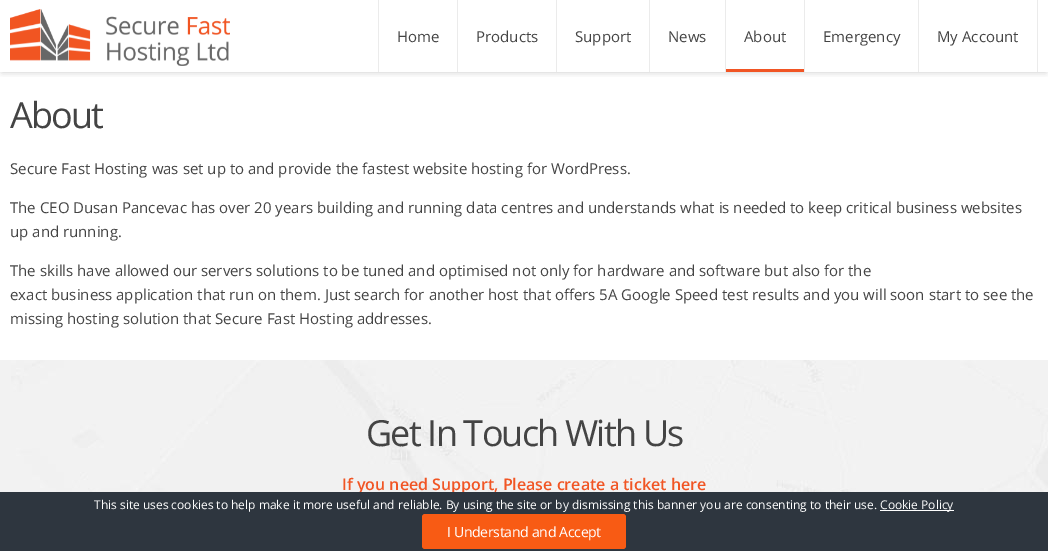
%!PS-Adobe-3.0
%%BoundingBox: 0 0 1048 551
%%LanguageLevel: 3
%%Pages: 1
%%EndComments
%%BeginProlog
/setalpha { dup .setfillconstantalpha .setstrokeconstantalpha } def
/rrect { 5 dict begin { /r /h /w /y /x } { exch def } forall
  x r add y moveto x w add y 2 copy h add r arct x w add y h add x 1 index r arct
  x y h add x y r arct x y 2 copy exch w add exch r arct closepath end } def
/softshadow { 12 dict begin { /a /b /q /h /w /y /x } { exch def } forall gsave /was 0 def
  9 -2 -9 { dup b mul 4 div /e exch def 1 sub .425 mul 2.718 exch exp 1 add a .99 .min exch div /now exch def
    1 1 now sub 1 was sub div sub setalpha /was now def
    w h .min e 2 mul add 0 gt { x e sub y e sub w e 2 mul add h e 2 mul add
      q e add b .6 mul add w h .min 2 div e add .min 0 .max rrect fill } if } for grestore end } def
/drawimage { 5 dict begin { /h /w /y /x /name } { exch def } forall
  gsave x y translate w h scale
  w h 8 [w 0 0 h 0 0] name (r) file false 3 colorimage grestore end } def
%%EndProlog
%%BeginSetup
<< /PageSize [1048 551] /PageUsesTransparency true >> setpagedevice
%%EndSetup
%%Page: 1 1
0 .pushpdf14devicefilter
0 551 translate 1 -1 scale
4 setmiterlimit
1 setgray
0 0 1048 551 rectfill
gsave
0 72 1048 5 rectclip
0.004 setgray
2 4 1044 68 0 3.5 0.21 softshadow
grestore
(images/1.raw) 10 9 220 57 drawimage
0.922 setgray
378 0 1 72 rectfill
457 0 1 72 rectfill
556 0 1 72 rectfill
649 0 1 72 rectfill
0.945 0.333 0.141 setrgbcolor
726 69 78 3 rectfill
0.922 setgray
725 0 1 72 rectfill
804 0 1 72 rectfill
1037 0 1 72 rectfill
918 0 1 72 rectfill
0.949 setgray
0 360 11 132 rectfill
(images/2.raw) 11 360 1037 132 drawimage
/OpenSans-Regular [15 0 0 -15 0 0] selectfont
0.267 setgray
397 42 moveto (Home) show
476 42 moveto (Products) show
575 42 moveto (Support) show
668 42 moveto (News) show
744 42 moveto (About) show
823 42 moveto (Emergency) show
937 42 moveto (My Account) show
/OpenSans-Regular [36 0 0 -36 0 0] selectfont
10 128 moveto -1.8 0 (About) ashow
/OpenSans-Regular [15 0 0 -15 0 0] selectfont
10 174 moveto (Secure Fast Hosting was set up to and provide the fastest website hosting for WordPress.) show
10 213 moveto (The CEO Dusan Pancevac has over 20 years building and running data centres and understands what is needed to keep critical business websites) show
10 237 moveto (up and running.) show
10 276 moveto (The skills have allowed our servers solutions to be tuned and optimised not only for hardware and software but also for the) show
10 300 moveto (exact business application that run on them. Just search for another host that offers 5A Google Speed test results and you will soon start to see the) show
10 324 moveto (missing hosting solution that Secure Fast Hosting addresses.) show
/OpenSans-Regular [36 0 0 -36 0 0] selectfont
366 446 moveto -1.8 0 (Get In Touch With Us) ashow
/OpenSans-SemiBold [16 0 0 -16 0 0] selectfont
0.945 0.333 0.141 setrgbcolor
342 490 moveto (If you need Support, Please create a ticket here) show
0.18 0.212 0.247 setrgbcolor
0 492 1048 59 rectfill
/OpenSans-Regular [12 0 0 -12 0 0] selectfont
1 setgray
94 509 moveto (This site uses cookies to help make it more useful and reliable. By using the site or by dismissing this banner you are consenting to their use.) show
880 510 74 1 rectfill
880 509 moveto (Cookie Policy) show
0.973 0.357 0.078 setrgbcolor
422 514 204 35 3 rrect fill
/OpenSans-Regular [14.1 0 0 -14.1 0 0] selectfont
1 setgray
447 537 moveto -0.35 0 (I Understand and Accept) ashow
.poppdf14devicefilter showpage
%%EOF
